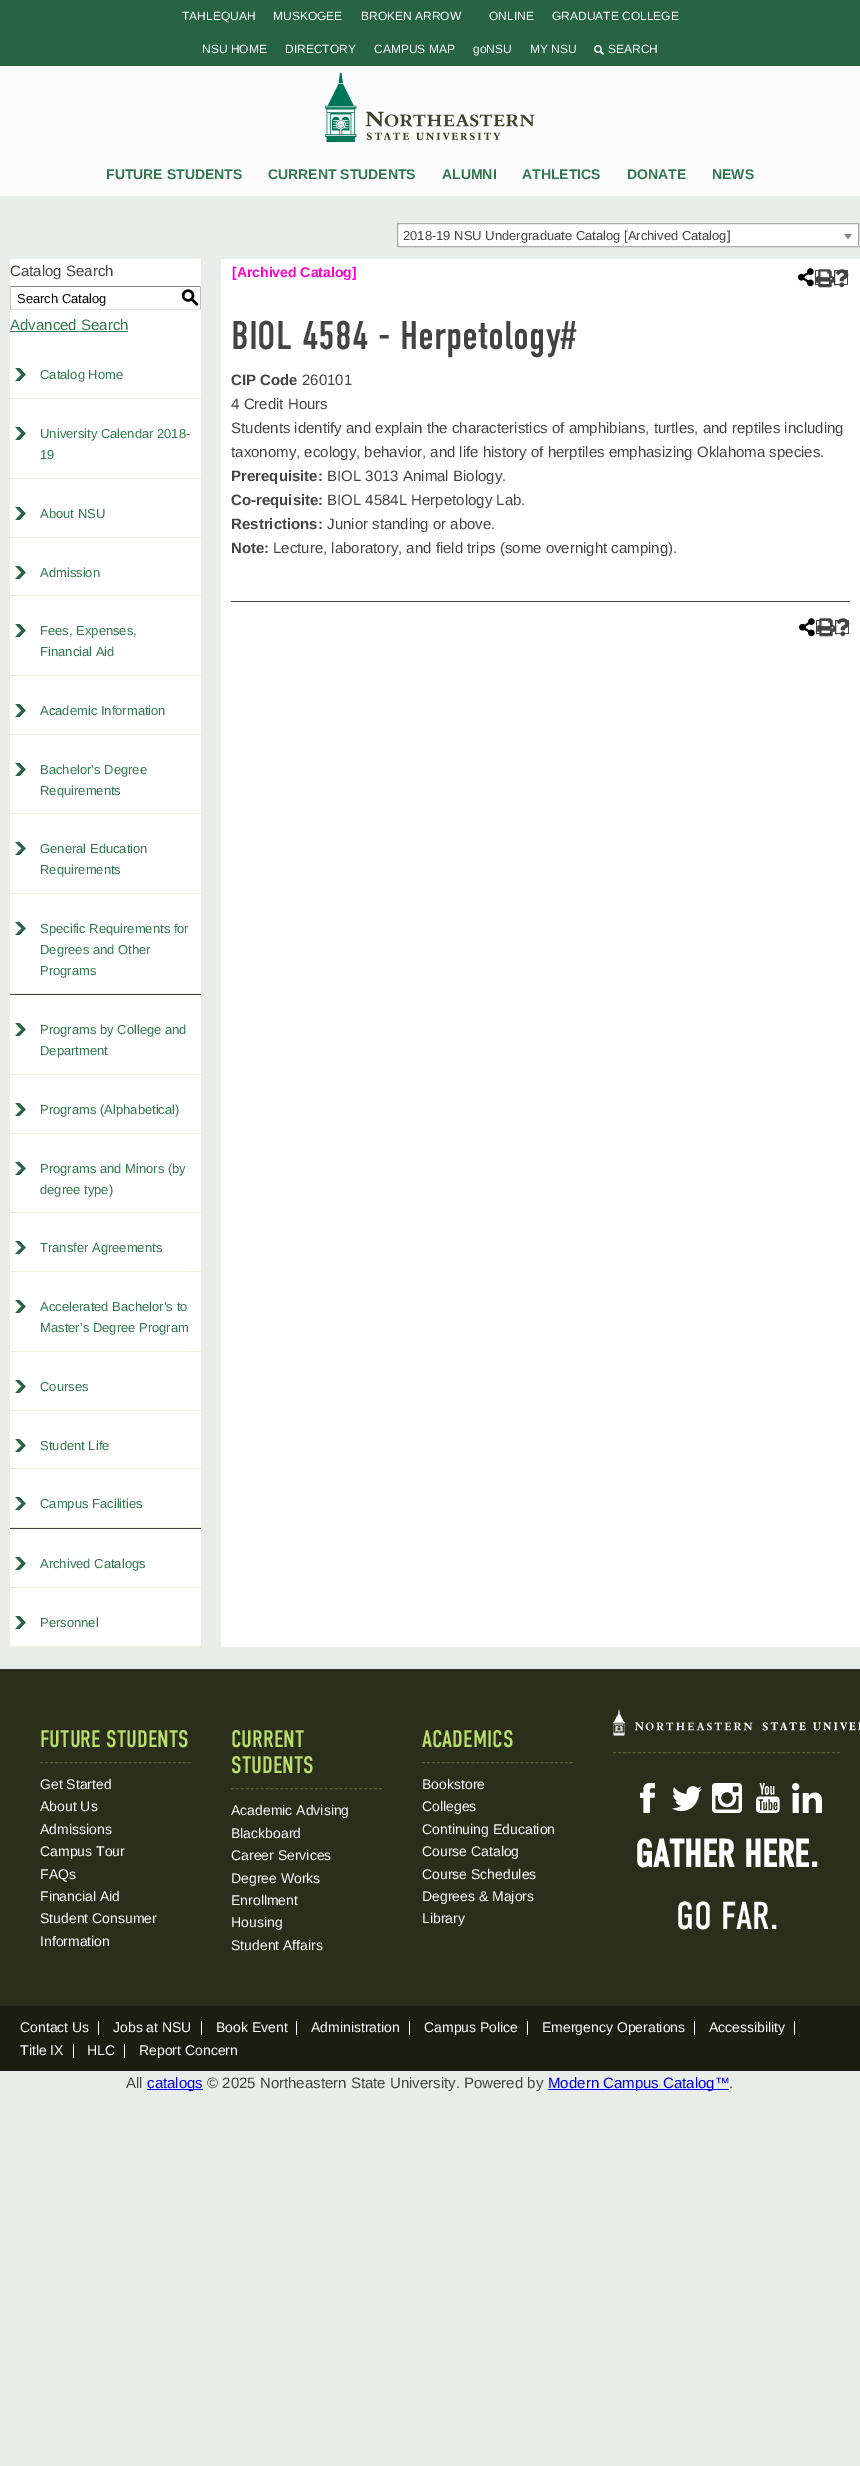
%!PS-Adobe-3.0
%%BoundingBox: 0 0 860 2466
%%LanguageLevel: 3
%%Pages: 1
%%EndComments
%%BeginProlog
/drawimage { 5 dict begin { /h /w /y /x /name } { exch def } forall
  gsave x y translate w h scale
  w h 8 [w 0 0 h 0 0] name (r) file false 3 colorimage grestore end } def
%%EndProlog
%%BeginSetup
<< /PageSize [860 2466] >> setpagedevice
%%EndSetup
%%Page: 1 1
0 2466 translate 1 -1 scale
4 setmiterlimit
0.914 0.929 0.914 setrgbcolor
0 0 860 2466 rectfill
0.988 setgray
0 66 860 130 rectfill
0.153 0.392 0.267 setrgbcolor
0 0 860 66 rectfill
(images/1.raw) 594 45 10 10 drawimage
(images/2.raw) 325 72 210 70 drawimage
1 setgray
newpath 397.5 223.5 moveto 858.5 223.5 lineto 858.5 246.5 lineto 397.5 246.5 lineto closepath gsave fill grestore
0.667 setgray
stroke
0.533 setgray
newpath 844 234 moveto 852 234 lineto 848 239 lineto closepath fill
1 setgray
10 259 191 1387 rectfill
0.518 setgray
10 286 191 1 rectfill
0.757 setgray
200 286 1 24 rectfill
0.882 setgray
10 309 191 1 rectfill
0.757 setgray
10 286 1 24 rectfill
0.192 0.467 0.31 setrgbcolor
10 331 118 1 rectfill
(images/3.raw) 15 368 11 13 drawimage
0.953 0.929 0.894 setrgbcolor
10 398 191 1 rectfill
(images/3.raw) 15 427 11 13 drawimage
10 478 191 1 rectfill
(images/4.raw) 15 507 11 13 drawimage
10 537 191 1 rectfill
(images/3.raw) 15 566 11 13 drawimage
10 595 191 1 rectfill
(images/3.raw) 15 624 11 13 drawimage
10 675 191 1 rectfill
(images/3.raw) 15 704 11 13 drawimage
10 734 191 1 rectfill
(images/3.raw) 15 763 11 13 drawimage
10 813 191 1 rectfill
(images/3.raw) 15 842 11 13 drawimage
10 893 191 1 rectfill
(images/3.raw) 15 922 11 13 drawimage
10 993 191 1 rectfill
0.267 setgray
10 994 191 1 rectfill
(images/3.raw) 15 1023 11 13 drawimage
0.953 0.929 0.894 setrgbcolor
10 1074 191 1 rectfill
(images/3.raw) 15 1103 11 13 drawimage
10 1133 191 1 rectfill
(images/3.raw) 15 1162 11 13 drawimage
10 1212 191 1 rectfill
(images/3.raw) 15 1241 11 13 drawimage
10 1271 191 1 rectfill
(images/3.raw) 15 1300 11 13 drawimage
10 1351 191 1 rectfill
(images/3.raw) 15 1380 11 13 drawimage
10 1410 191 1 rectfill
(images/3.raw) 15 1439 11 13 drawimage
10 1468 191 1 rectfill
(images/3.raw) 15 1497 11 13 drawimage
10 1527 191 1 rectfill
0.267 setgray
10 1528 191 1 rectfill
(images/3.raw) 15 1557 11 13 drawimage
0.953 0.929 0.894 setrgbcolor
10 1587 191 1 rectfill
(images/3.raw) 15 1616 11 13 drawimage
10 1646 191 1 rectfill
1 setgray
221 259 639 1388 rectfill
(images/5.raw) 798 268 16 19 drawimage
0.267 setgray
815.5 270.5 14 14 rectstroke
(images/6.raw) 816 269 18 19 drawimage
834.5 270.5 13 14 rectstroke
(images/7.raw) 836 269 13 19 drawimage
231 601 619 1 rectfill
(images/5.raw) 799 618 16 19 drawimage
816.5 620.5 14 13 rectstroke
(images/8.raw) 817 618 18 19 drawimage
835.5 620.5 13 13 rectstroke
(images/9.raw) 837 618 13 19 drawimage
0.169 0.18 0.106 setrgbcolor
0 1669 860 337 rectfill
0.345 0.369 0.216 setrgbcolor
[3 1.93] 0 setdash
newpath 40 1762.5 moveto 191 1762.5 lineto stroke
newpath 231 1788.5 moveto 382 1788.5 lineto stroke
newpath 422 1762.5 moveto 573 1762.5 lineto stroke
[3 1.98] 0 setdash
newpath 613 1752.5 moveto 840 1752.5 lineto stroke
(images/10.raw) 613 1709 247 27 drawimage
(images/11.raw) 640 1783 15 30 drawimage
(images/12.raw) 672 1786 30 25 drawimage
(images/13.raw) 712 1783 30 30 drawimage
(images/14.raw) 756 1783 24 30 drawimage
(images/15.raw) 792 1783 30 30 drawimage
0.11 0.118 0.071 setrgbcolor
0 2006 860 65 rectfill
1 setgray
98 2021 1 14 rectfill
201 2021 1 14 rectfill
296 2021 1 14 rectfill
409 2021 1 14 rectfill
527 2021 1 14 rectfill
694 2021 1 14 rectfill
794 2021 1 14 rectfill
73 2044 1 14 rectfill
124 2044 1 14 rectfill
0 0 0.933 setrgbcolor
147 2089 56 1 rectfill
548 2089 181 1 rectfill
/LiberationSans-Regular [12 0 0 -12 0 0] selectfont
1 setgray
182 20 moveto (TAHLEQUAH) show
273 20 moveto (MUSKOGEE) show
361 20 moveto (BROKEN ARROW) show
489 20 moveto (ONLINE) show
552 20 moveto (GRADUATE COLLEGE) show
202 53 moveto (NSU HOME) show
285 53 moveto (DIRECTORY) show
374 53 moveto (CAMPUS MAP) show
473 53 moveto (goNSU) show
530 53 moveto (MY NSU) show
608 53 moveto (SEARCH) show
/LiberationSans-Bold [14 0 0 -14 0 0] selectfont
0.192 0.467 0.31 setrgbcolor
106 179 moveto (FUTURE STUDENTS) show
268 179 moveto (CURRENT STUDENTS) show
442 179 moveto (ALUMNI) show
522 179 moveto (ATHLETICS) show
627 179 moveto (DONATE) show
712 179 moveto (NEWS) show
/LiberationSans-Regular [13 0 0 -13 0 0] selectfont
0.267 setgray
403 240 moveto (2018-19 NSU Undergraduate Catalog [Archived Catalog]) show
/LiberationSans-Regular [15 0 0 -15 0 0] selectfont
10 276 moveto (Catalog Search) show
/LiberationSans-Regular [13 0 0 -13 0 0] selectfont
0 setgray
17 303 moveto (Search Catalog) show
/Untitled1-Medium [18 0 0 -18 0 0] selectfont
181 303 moveto (S) show
/LiberationSans-Regular [15 0 0 -15 0 0] selectfont
0.192 0.467 0.31 setrgbcolor
10 330 moveto (Advanced Search) show
/LiberationSans-Regular [13 0 0 -13 0 0] selectfont
40 379 moveto (Catalog Home) show
40 438 moveto (University Calendar 2018-) show
40 459 moveto (19) show
40 518 moveto (About NSU) show
40 577 moveto (Admission) show
40 635 moveto (Fees, Expenses,) show
40 656 moveto (Financial Aid) show
40 715 moveto (Academic Information) show
40 774 moveto (Bachelor’s Degree) show
40 795 moveto (Requirements) show
40 853 moveto (General Education) show
40 874 moveto (Requirements) show
40 933 moveto (Specific Requirements for) show
40 954 moveto (Degrees and Other) show
40 975 moveto (Programs) show
40 1034 moveto (Programs by College and) show
40 1055 moveto (Department) show
40 1114 moveto (Programs \(Alphabetical\)) show
40 1173 moveto (Programs and Minors \(by) show
40 1194 moveto (degree type\)) show
40 1252 moveto (Transfer Agreements) show
40 1311 moveto (Accelerated Bachelor’s to) show
40 1332 moveto (Master’s Degree Program) show
40 1391 moveto (Courses) show
40 1450 moveto (Student Life) show
40 1508 moveto (Campus Facilities) show
40 1568 moveto (Archived Catalogs) show
40 1627 moveto (Personnel) show
/LiberationSans-Bold [14 0 0 -14 0 0] selectfont
1 0 0.8 setrgbcolor
232 277 moveto ([Archived Catalog]) show
/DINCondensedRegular-Regular [40 0 0 -40 0 0] selectfont
0.267 setgray
231 349 moveto (BIOL 4584 - Herpetology#) show
/LiberationSans-Bold [15 0 0 -15 0 0] selectfont
231 385 moveto (CIP Code) show
/LiberationSans-Regular [15 0 0 -15 0 0] selectfont
302 385 moveto (260101) show
231 409 moveto (4 Credit Hours) show
231 433 moveto (Students identify and explain the characteristics of amphibians, turtles, and reptiles including) show
231 457 moveto (taxonomy, ecology, behavior, and life history of herptiles emphasizing Oklahoma species.) show
/LiberationSans-Bold [15 0 0 -15 0 0] selectfont
231 481 moveto (Prerequisite:) show
/LiberationSans-Regular [15 0 0 -15 0 0] selectfont
327 481 moveto (BIOL 3013 Animal Biology.) show
/LiberationSans-Bold [15 0 0 -15 0 0] selectfont
231 505 moveto (Co-requisite:) show
/LiberationSans-Regular [15 0 0 -15 0 0] selectfont
327 505 moveto (BIOL 4584L Herpetology Lab.) show
/LiberationSans-Bold [15 0 0 -15 0 0] selectfont
231 529 moveto (Restrictions:) show
/LiberationSans-Regular [15 0 0 -15 0 0] selectfont
327 529 moveto (Junior standing or above.) show
/LiberationSans-Bold [15 0 0 -15 0 0] selectfont
231 553 moveto (Note:) show
/LiberationSans-Regular [15 0 0 -15 0 0] selectfont
273 553 moveto (Lecture, laboratory, and field trips \(some overnight camping\).) show
/DINCondensedRegular-Regular [24 0 0 -24 0 0] selectfont
0.725 0.875 0.424 setrgbcolor
40 1747 moveto (FUTURE STUDENTS) show
/LiberationSans-Regular [14 0 0 -14 0 0] selectfont
1 setgray
40 1789 moveto (Get Started) show
40 1811 moveto (About Us) show
40 1834 moveto (Admissions) show
40 1856 moveto (Campus Tour) show
40 1879 moveto (FAQs) show
40 1901 moveto (Financial Aid) show
40 1923 moveto (Student Consumer) show
40 1946 moveto (Information) show
/DINCondensedRegular-Regular [24 0 0 -24 0 0] selectfont
0.725 0.875 0.424 setrgbcolor
231 1747 moveto (CURRENT) show
231 1773 moveto (STUDENTS) show
/LiberationSans-Regular [14 0 0 -14 0 0] selectfont
1 setgray
231 1815 moveto (Academic Advising) show
231 1838 moveto (Blackboard) show
231 1860 moveto (Career Services) show
231 1883 moveto (Degree Works) show
231 1905 moveto (Enrollment) show
231 1927 moveto (Housing) show
231 1950 moveto (Student Affairs) show
/DINCondensedRegular-Regular [24 0 0 -24 0 0] selectfont
0.725 0.875 0.424 setrgbcolor
422 1747 moveto (ACADEMICS) show
/LiberationSans-Regular [14 0 0 -14 0 0] selectfont
1 setgray
422 1789 moveto (Bookstore) show
422 1811 moveto (Colleges) show
422 1834 moveto (Continuing Education) show
422 1856 moveto (Course Catalog) show
422 1879 moveto (Course Schedules) show
422 1901 moveto (Degrees & Majors) show
422 1923 moveto (Library) show
/DINCondensedRegular-Bold [39 0 0 -39 0 0] selectfont
635 1867 moveto (GATHER HERE.) show
/DINCondensedRegular-Regular [39 0 0 -39 0 0] selectfont
676 1929 moveto (GO FAR.) show
/LiberationSans-Regular [14 0 0 -14 0 0] selectfont
20 2032 moveto (Contact Us) show
113 2032 moveto (Jobs at NSU) show
216 2032 moveto (Book Event) show
311 2032 moveto (Administration) show
424 2032 moveto (Campus Police) show
542 2032 moveto (Emergency Operations) show
709 2032 moveto (Accessibility) show
20 2055 moveto (Title IX) show
87 2055 moveto (HLC) show
139 2055 moveto (Report Concern) show
/LiberationSans-Regular [15 0 0 -15 0 0] selectfont
0.267 setgray
126 2088 moveto (All) show
0 0 0.933 setrgbcolor
147 2088 moveto (catalogs) show
0.267 setgray
207 2088 moveto (© 2025 Northeastern State University. Powered by) show
0 0 0.933 setrgbcolor
548 2088 moveto (Modern Campus Catalog™) show
0.267 setgray
729 2088 moveto (.) show
showpage
%%EOF
